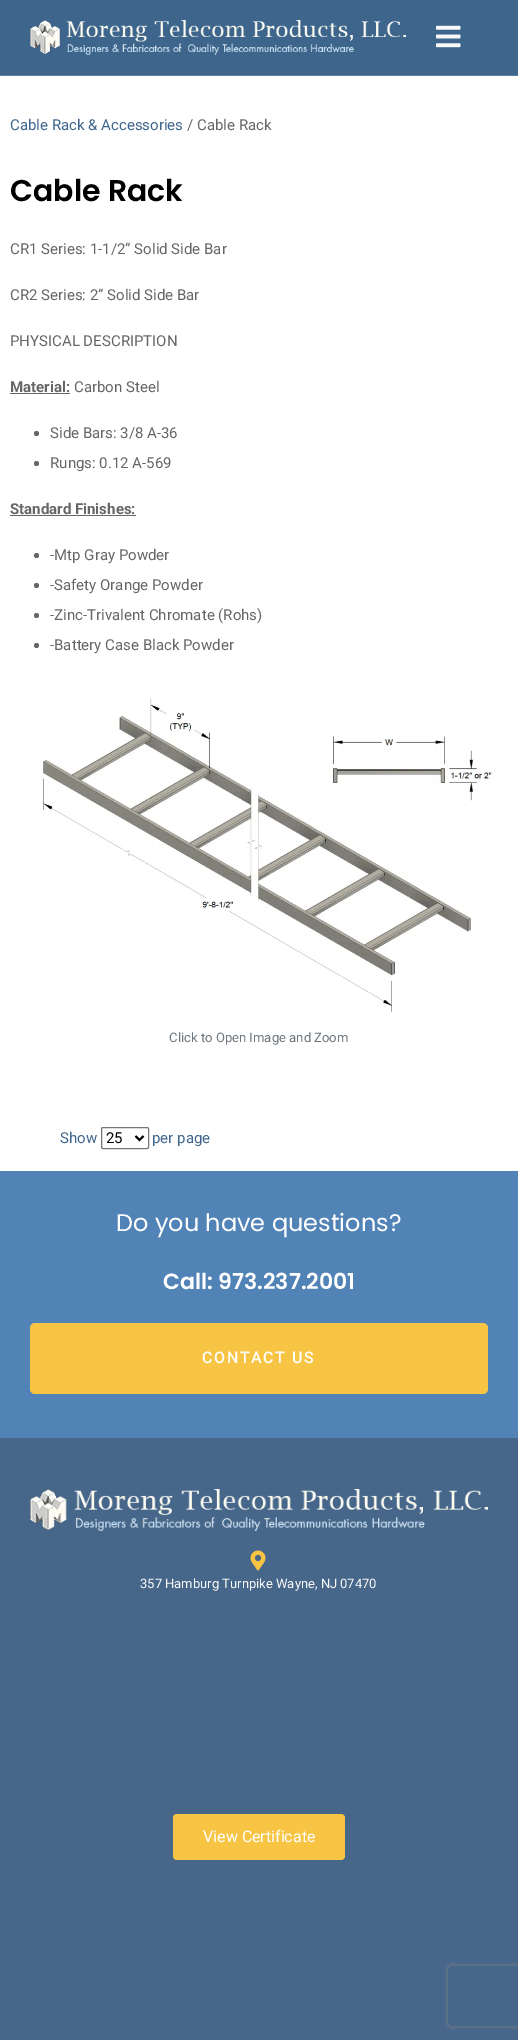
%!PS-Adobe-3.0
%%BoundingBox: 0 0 518 2040
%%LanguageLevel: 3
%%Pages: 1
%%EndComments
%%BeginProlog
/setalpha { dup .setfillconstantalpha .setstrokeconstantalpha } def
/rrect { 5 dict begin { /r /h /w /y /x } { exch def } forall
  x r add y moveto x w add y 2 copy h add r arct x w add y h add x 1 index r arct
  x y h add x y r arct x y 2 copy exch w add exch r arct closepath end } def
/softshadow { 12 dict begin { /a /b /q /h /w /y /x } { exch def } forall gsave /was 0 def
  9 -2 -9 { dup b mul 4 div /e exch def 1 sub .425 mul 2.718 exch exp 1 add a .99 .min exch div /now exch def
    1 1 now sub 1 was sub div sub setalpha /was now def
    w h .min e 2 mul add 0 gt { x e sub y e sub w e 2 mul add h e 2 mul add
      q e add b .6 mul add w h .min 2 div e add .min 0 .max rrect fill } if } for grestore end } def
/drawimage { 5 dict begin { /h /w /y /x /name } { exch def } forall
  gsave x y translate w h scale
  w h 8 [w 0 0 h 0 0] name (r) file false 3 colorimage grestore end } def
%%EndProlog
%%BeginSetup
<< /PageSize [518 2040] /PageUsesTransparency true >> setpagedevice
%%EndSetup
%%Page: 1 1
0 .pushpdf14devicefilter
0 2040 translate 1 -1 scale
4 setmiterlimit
1 setgray
0 0 518 2040 rectfill
0.243 0.4 0.553 setrgbcolor
0 0 518 75 rectfill
0.369 0.494 0.62 setrgbcolor
0 75 518 1 rectfill
(images/1.raw) 30 20 376 35 drawimage
(images/2.raw) 436 25 25 23 drawimage
0.4 setgray
10 393 60 1 rectfill
newpath 36.5 433.5 2.5 0 360 arc closepath fill
newpath 36.5 463.5 2.5 0 360 arc closepath fill
10 515 126 1 rectfill
newpath 36.5 555.5 2.5 0 360 arc closepath fill
newpath 36.5 585.5 2.5 0 360 arc closepath fill
newpath 36.5 615.5 2.5 0 360 arc closepath fill
newpath 36.5 645.5 2.5 0 360 arc closepath fill
(images/3.raw) 42 698 450 314 drawimage
0.463 setgray
101.5 1127.5 47 21 1.5 rrect stroke
0 setgray
2 setlinewidth
newpath 135.5 1136 moveto 139.5 1140 lineto 143.5 1136 lineto stroke
0.318 0.514 0.714 setrgbcolor
0 1171 518 267 rectfill
0.969 0.769 0.267 setrgbcolor
30 1323 458 71 5 rrect fill
0.275 0.4 0.541 setrgbcolor
0 1438 518 602 rectfill
(images/4.raw) 30 1489 458 42 drawimage
(images/5.raw) 250 1550 16 21 drawimage
0.969 0.769 0.267 setrgbcolor
173 1814 172 46 4 rrect fill
gsave
newpath 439 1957 moveto 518 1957 lineto 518 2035 lineto 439 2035 lineto closepath 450 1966 moveto 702 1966 lineto 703 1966 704 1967 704 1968 curveto 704 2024 lineto 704 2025 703 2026 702 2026 curveto 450 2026 lineto 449 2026 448 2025 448 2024 curveto 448 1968 lineto 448 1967 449 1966 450 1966 curveto closepath eoclip newpath
0.502 setgray
448 1966 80 60 2 2.5 1 softshadow
grestore
/Roboto-Regular [15 0 0 -15 0 0] selectfont
0.243 0.4 0.553 setrgbcolor
10 130 moveto (Cable Rack & Accessories) show
0.4 setgray
187 130 moveto (/ Cable Rack) show
/Poppins-SemiBold [30 0 0 -30 0 0] selectfont
0 setgray
10 201 moveto (Cable Rack) show
/Roboto-Regular [15 0 0 -15 0 0] selectfont
0.4 setgray
10 254 moveto (CR1 Series: 1-1/2” Solid Side Bar) show
10 300 moveto (CR2 Series: 2” Solid Side Bar) show
10 346 moveto (PHYSICAL DESCRIPTION) show
/Roboto-Bold [15 0 0 -15 0 0] selectfont
10 392 moveto (Material:) show
/Roboto-Regular [15 0 0 -15 0 0] selectfont
74 392 moveto (Carbon Steel) show
50 438 moveto (Side Bars: 3/8 A-36) show
50 468 moveto (Rungs: 0.12 A-569) show
/Roboto-Bold [15 0 0 -15 0 0] selectfont
10 514 moveto (Standard Finishes:) show
/Roboto-Regular [15 0 0 -15 0 0] selectfont
50 560 moveto (-Mtp Gray Powder) show
50 590 moveto (-Safety Orange Powder) show
50 620 moveto (-Zinc-Trivalent Chromate \(Rohs\)) show
50 650 moveto (-Battery Case Black Powder) show
/Roboto-Regular [13.1 0 0 -13.1 0 0] selectfont
0.424 0.459 0.49 setrgbcolor
169 1042 moveto (Click to Open Image and Zoom) show
/Roboto-Regular [15 0 0 -15 0 0] selectfont
0.243 0.4 0.553 setrgbcolor
60 1143 moveto (Show) show
0 setgray
106 1143 moveto (25) show
0.243 0.4 0.553 setrgbcolor
152 1143 moveto (per page) show
/Poppins-Regular [24 0 0 -24 0 0] selectfont
1 setgray
116 1231 moveto (Do you have questions?) show
/Poppins-SemiBold [22 0 0 -22 0 0] selectfont
163 1289 moveto (Call: 973.237.2001) show
/Roboto-Medium [16 0 0 -16 0 0] selectfont
202 1363 moveto 1.6 0 (CONTACT US) ashow
/Roboto-Regular [13 0 0 -13 0 0] selectfont
0.976 setgray
140 1588 moveto (357 Hamburg Turnpike Wayne, NJ 07470) show
/Roboto-Regular [16 0 0 -16 0 0] selectfont
1 setgray
203 1842 moveto (View Certificate) show
.poppdf14devicefilter showpage
%%EOF
